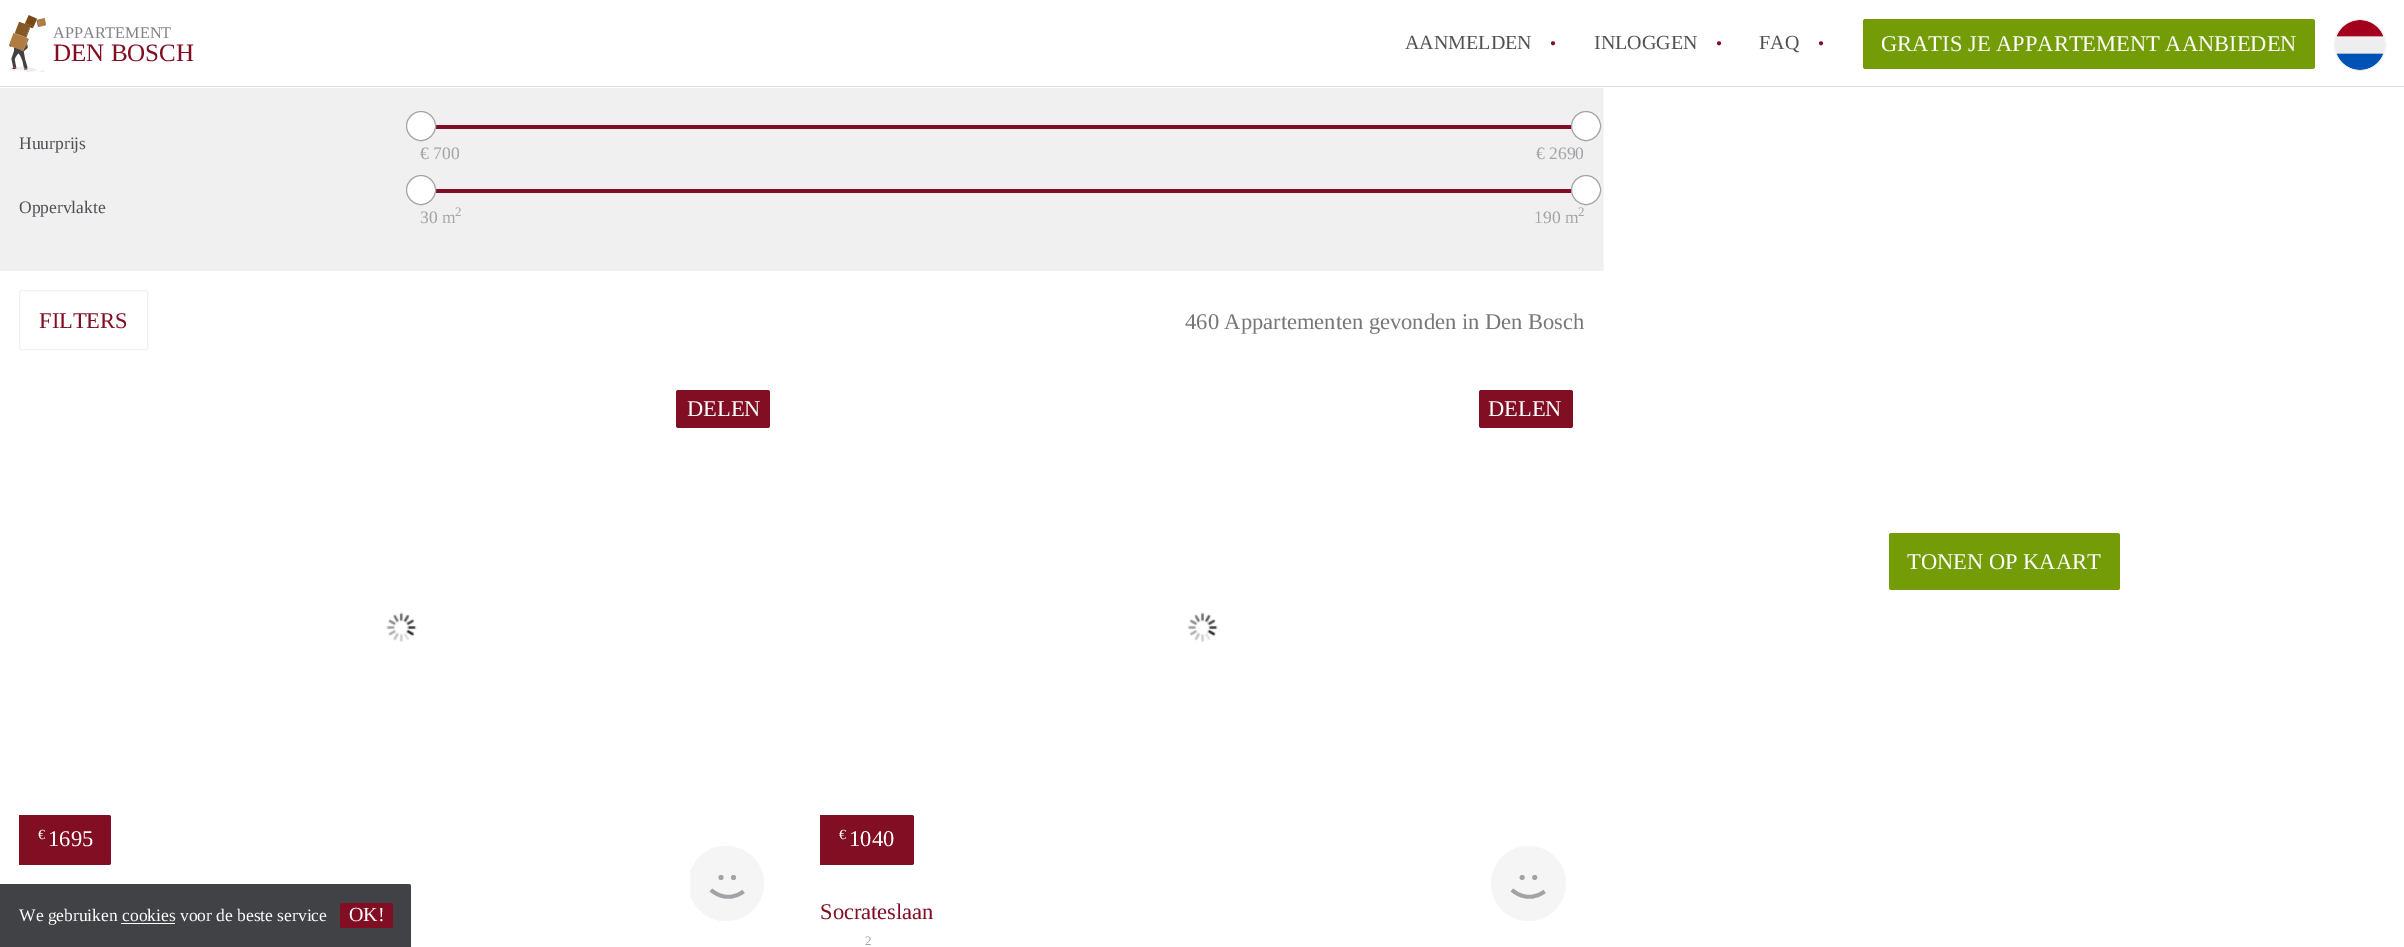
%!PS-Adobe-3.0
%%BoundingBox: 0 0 2404 947
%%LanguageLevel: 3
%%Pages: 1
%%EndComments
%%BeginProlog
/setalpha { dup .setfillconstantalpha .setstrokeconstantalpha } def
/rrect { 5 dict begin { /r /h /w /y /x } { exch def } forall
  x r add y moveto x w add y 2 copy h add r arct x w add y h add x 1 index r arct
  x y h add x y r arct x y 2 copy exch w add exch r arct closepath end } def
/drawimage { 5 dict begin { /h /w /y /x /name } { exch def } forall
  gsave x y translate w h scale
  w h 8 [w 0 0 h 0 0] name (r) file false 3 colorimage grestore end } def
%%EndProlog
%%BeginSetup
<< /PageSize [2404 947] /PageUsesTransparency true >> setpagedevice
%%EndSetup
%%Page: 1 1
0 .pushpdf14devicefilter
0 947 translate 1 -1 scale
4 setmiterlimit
1 setgray
0 0 2404 947 rectfill
0.89 setgray
0 86 2404 1 rectfill
(images/1.raw) 9 15 37 57 drawimage
0.451 0.612 0.027 setrgbcolor
1863 19 452 50 2.5 rrect fill
0.941 setgray
newpath 2360 45 25.5 0 360 arc closepath stroke
(images/2.raw) 2335 20 50 50 drawimage
0 88 1603 183 rectfill
0.506 0.055 0.137 setrgbcolor
435 125 1137 4 rectfill
1 setgray
newpath 421 126 14.5 0 360 arc closepath gsave fill grestore
0.635 0.639 0.651 setrgbcolor
stroke
1 setgray
newpath 1586 126 14.5 0 360 arc closepath gsave fill grestore
0.635 0.639 0.651 setrgbcolor
stroke
0.506 0.055 0.137 setrgbcolor
435 189 1137 4 rectfill
1 setgray
newpath 421 190 14.5 0 360 arc closepath gsave fill grestore
0.635 0.639 0.651 setrgbcolor
stroke
1 setgray
newpath 1586 190 14.5 0 360 arc closepath gsave fill grestore
0.635 0.639 0.651 setrgbcolor
stroke
0.941 setgray
19.5 290.5 128 59 2 rrect stroke
0.506 0.055 0.137 setrgbcolor
676 390 94 38 2.5 rrect fill
(images/3.raw) 386 612 31 31 drawimage
newpath 19 815 moveto 108.5 815 lineto 110 815 111 816 111 817.5 curveto 111 862.5 lineto 111 864 110 865 108.5 865 curveto 19 865 lineto closepath fill
gsave
689 846 75 75 37.5 rrect clip newpath
0.961 setgray
newpath 690 846 moveto 726.5 846 lineto 747 846 764 863 764 883.5 curveto 764 904 747 921 726.5 921 curveto 690 921 lineto closepath fill
grestore
0.635 0.639 0.651 setrgbcolor
3.8 setlinewidth
newpath 711 890 moveto 711 890 726 904.5 743.5 891.5 curveto stroke
newpath 721 877.5 2.5 0 360 arc closepath fill
newpath 733.5 877.5 2.5 0 360 arc closepath fill
0.506 0.055 0.137 setrgbcolor
1479 390 94 38 2.5 rrect fill
(images/4.raw) 1187 612 31 31 drawimage
newpath 820 815 moveto 911.5 815 lineto 913 815 914 816 914 817.5 curveto 914 862.5 lineto 914 864 913 865 911.5 865 curveto 820 865 lineto closepath fill
0.961 setgray
newpath 1528.5 883.5 37.5 0 360 arc closepath fill
0.635 0.639 0.651 setrgbcolor
newpath 1512 890 moveto 1512 890 1527 904.5 1544.5 891.5 curveto stroke
newpath 1522.2 877.5 2.5 0 360 arc closepath fill
newpath 1534.7 877.5 2.5 0 360 arc closepath fill
0.965 setgray
1603 88 1 183 rectfill
0.451 0.612 0.027 setrgbcolor
1889 533 231 57 2.5 rrect fill
0.9 setalpha
0.169 0.176 0.192 setrgbcolor
newpath 0 884 moveto 408.5 884 lineto 410 884 411 885 411 886.5 curveto 411 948 lineto 0 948 lineto closepath fill
1 setalpha
0.506 0.055 0.137 setrgbcolor
340 903 53 25 2.5 rrect fill
1 setgray
121 923 54 1 rectfill
/LiberationSerif-Regular [16.25 0 0 -16.25 0 0] selectfont
0.502 0.51 0.522 setrgbcolor
53 38 moveto (APPARTEMENT) show
/LiberationSerif-Regular [25 0 0 -25 0 0] selectfont
0.506 0.055 0.137 setrgbcolor
53 61 moveto (DEN BOSCH) show
/LiberationSerif-Regular [20 0 0 -20 0 0] selectfont
0.31 0.318 0.329 setrgbcolor
1405 49 moveto (AANMELDEN) show
/LiberationSerif-Regular [17.5 0 0 -17.5 0 0] selectfont
0.506 0.055 0.137 setrgbcolor
1550 49 moveto (•) show
/LiberationSerif-Regular [20 0 0 -20 0 0] selectfont
0.31 0.318 0.329 setrgbcolor
1594 49 moveto (INLOGGEN) show
/LiberationSerif-Regular [17.5 0 0 -17.5 0 0] selectfont
0.506 0.055 0.137 setrgbcolor
1716 49 moveto (•) show
/LiberationSerif-Regular [20 0 0 -20 0 0] selectfont
0.31 0.318 0.329 setrgbcolor
1759 49 moveto (FAQ) show
/LiberationSerif-Regular [17.5 0 0 -17.5 0 0] selectfont
0.506 0.055 0.137 setrgbcolor
1818 49 moveto (•) show
/LiberationSerif-Regular [22.5 0 0 -22.5 0 0] selectfont
1 setgray
1881 51 moveto (GRATIS JE APPARTEMENT AANBIEDEN) show
/LiberationSerif-Regular [17.5 0 0 -17.5 0 0] selectfont
0.31 0.318 0.329 setrgbcolor
19 149 moveto (Huurprijs) show
0.635 0.639 0.651 setrgbcolor
420 159 moveto (€ 700) show
1536 159 moveto (€ 2690) show
0.31 0.318 0.329 setrgbcolor
19 213 moveto (Oppervlakte) show
0.635 0.639 0.651 setrgbcolor
420 223 moveto (30 m) show
/LiberationSerif-Regular [13 0 0 -13 0 0] selectfont
455 216 moveto (2) show
/LiberationSerif-Regular [17.5 0 0 -17.5 0 0] selectfont
1534 223 moveto (190 m) show
/LiberationSerif-Regular [13 0 0 -13 0 0] selectfont
1578 216 moveto (2) show
/LiberationSerif-Regular [22.5 0 0 -22.5 0 0] selectfont
0.506 0.055 0.137 setrgbcolor
39 328 moveto (FILTERS) show
0.467 setgray
1185 329 moveto (460 Appartementen gevonden in Den Bosch) show
1 setgray
687 416 moveto (DELEN) show
/LiberationSerif-Regular [14 0 0 -14 0 0] selectfont
38 839 moveto (€) show
/LiberationSerif-Regular [22.5 0 0 -22.5 0 0] selectfont
48 846 moveto (1695) show
1488 416 moveto (DELEN) show
/LiberationSerif-Regular [14 0 0 -14 0 0] selectfont
839 839 moveto (€) show
/LiberationSerif-Regular [22.5 0 0 -22.5 0 0] selectfont
849 846 moveto (1040) show
0.506 0.055 0.137 setrgbcolor
820 919 moveto (Socrateslaan) show
/LiberationSerif-Regular [13 0 0 -13 0 0] selectfont
0.635 0.639 0.651 setrgbcolor
865 945 moveto (2) show
/LiberationSerif-Regular [22.5 0 0 -22.5 0 0] selectfont
1 setgray
1907 569 moveto (TONEN OP KAART) show
/LiberationSerif-Regular [17.5 0 0 -17.5 0 0] selectfont
19 921 moveto (We gebruiken cookies voor de beste service) show
/LiberationSerif-Regular [20 0 0 -20 0 0] selectfont
349 921 moveto (OK!) show
.poppdf14devicefilter showpage
%%EOF
